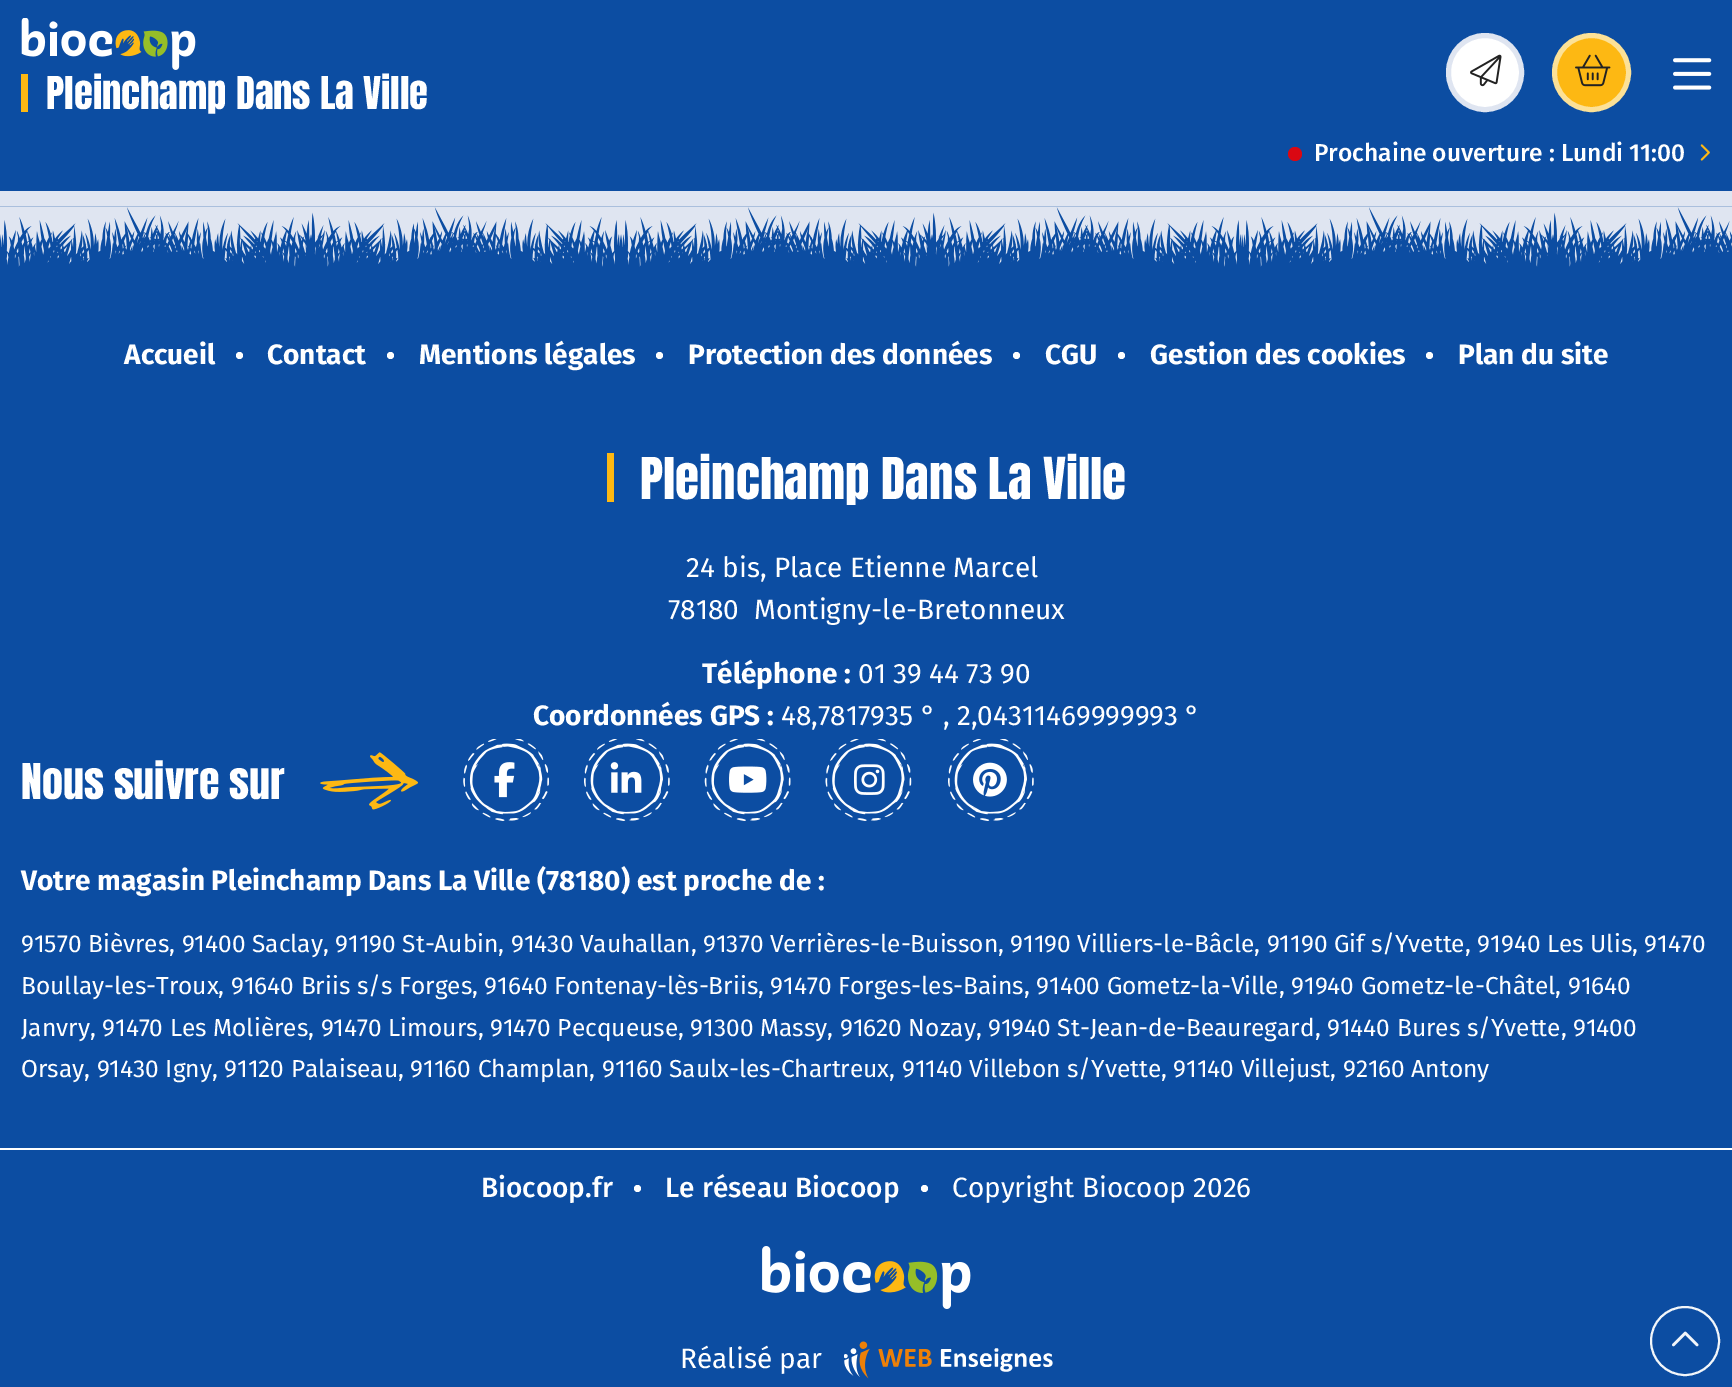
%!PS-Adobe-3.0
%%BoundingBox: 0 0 1732 1387
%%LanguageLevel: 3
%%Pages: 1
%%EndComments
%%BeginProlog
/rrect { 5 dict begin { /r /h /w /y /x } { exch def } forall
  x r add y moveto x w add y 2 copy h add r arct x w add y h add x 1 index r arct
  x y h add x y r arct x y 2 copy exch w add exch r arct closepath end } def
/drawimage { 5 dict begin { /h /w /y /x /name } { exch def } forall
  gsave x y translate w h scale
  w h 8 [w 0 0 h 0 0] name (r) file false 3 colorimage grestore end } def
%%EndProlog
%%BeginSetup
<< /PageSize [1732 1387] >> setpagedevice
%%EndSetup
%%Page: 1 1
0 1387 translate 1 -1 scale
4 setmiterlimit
0.047 0.302 0.635 setrgbcolor
0 0 1732 1387 rectfill
(images/1.raw) 21 18 175 52 drawimage
0.992 0.722 0.075 setrgbcolor
21 74 7 38 rectfill
1 setgray
1448.5 35.5 73 74 36.5 rrect gsave fill grestore
0.875 0.898 0.945 setrgbcolor
5 setlinewidth
stroke
(images/2.raw) 1470 54 32 33 drawimage
0.992 0.722 0.075 setrgbcolor
newpath 1591.5 72.5 37 0 360 arc closepath gsave fill grestore
0.988 0.882 0.592 setrgbcolor
stroke
(images/3.raw) 1575 54 36 33 drawimage
(images/4.raw) 1673 58 39 32 drawimage
0.855 0.031 0.071 setrgbcolor
newpath 1295 154 7 0 360 arc closepath fill
(images/5.raw) 1700 144 10 17 drawimage
0.949 0.965 0.98 setrgbcolor
2 setlinewidth
newpath 1685 1341 34 0 360 arc closepath stroke
(images/6.raw) 1672 1331 27 16 drawimage
0.875 0.898 0.945 setrgbcolor
0 191 1732 76 rectfill
(images/7.raw) 0 206 1732 85 drawimage
1 setgray
newpath 239.5 355.5 3.5 0 360 arc closepath fill
newpath 390.5 355.5 3.5 0 360 arc closepath fill
newpath 659.5 355.5 3.5 0 360 arc closepath fill
newpath 1016.5 355.5 3.5 0 360 arc closepath fill
newpath 1121.5 355.5 3.5 0 360 arc closepath fill
newpath 1429.5 355.5 3.5 0 360 arc closepath fill
0.992 0.722 0.075 setrgbcolor
607 453 7 49 rectfill
(images/8.raw) 320 752 98 58 drawimage
(images/9.raw) 463 739 86 82 drawimage
(images/10.raw) 494 762 21 36 drawimage
(images/11.raw) 584 739 86 82 drawimage
(images/12.raw) 610 762 32 31 drawimage
(images/13.raw) 704 739 87 82 drawimage
(images/14.raw) 729 766 38 27 drawimage
(images/15.raw) 825 739 87 82 drawimage
(images/16.raw) 854 764 31 31 drawimage
(images/11.raw) 948 739 86 82 drawimage
(images/17.raw) 973 762 34 35 drawimage
1 setgray
0 1148 1732 2 rectfill
newpath 637.5 1188.5 3.5 0 360 arc closepath fill
newpath 924.5 1188.5 3.5 0 360 arc closepath fill
(images/18.raw) 762 1246 209 63 drawimage
(images/19.raw) 844 1341 209 38 drawimage
/Anton-Regular [38.5 0 0 -38.5 0 0] selectfont
46 109 moveto (Pleinchamp Dans La Ville) show
/FiraSans-Medium [24.5 0 0 -24.5 0 0] selectfont
1314 161 moveto (Prochaine ouverture : Lundi 11:00) show
/FiraSans-Bold [28 0 0 -28 0 0] selectfont
124 364 moveto (Accueil) show
267 364 moveto (Contact) show
419 364 moveto (Mentions légales) show
688 364 moveto (Protection des données) show
1045 364 moveto (CGU) show
1150 364 moveto (Gestion des cookies) show
1458 364 moveto (Plan du site) show
/Anton-Regular [49 0 0 -49 0 0] selectfont
640 499 moveto (Pleinchamp Dans La Ville) show
/FiraSans-Regular [28 0 0 -28 0 0] selectfont
686 577 moveto (24 bis, Place Etienne Marcel) show
668 619 moveto (78180  Montigny-le-Bretonneux) show
/FiraSans-Bold [28 0 0 -28 0 0] selectfont
702 683 moveto (Téléphone :) show
/FiraSans-Regular [28 0 0 -28 0 0] selectfont
858 683 moveto (01 39 44 73 90) show
/FiraSans-Bold [28 0 0 -28 0 0] selectfont
533 725 moveto (Coordonnées GPS :) show
/FiraSans-Regular [28 0 0 -28 0 0] selectfont
781 725 moveto (48,7817935 ° , 2,04311469999993 °) show
/Anton-Regular [42 0 0 -42 0 0] selectfont
21 799 moveto (Nous suivre sur) show
/FiraSans-Bold [28 0 0 -28 0 0] selectfont
21 890 moveto (Votre magasin Pleinchamp Dans La Ville \(78180\) est proche de :) show
/FiraSans-Regular [24.5 0 0 -24.5 0 0] selectfont
21 952 moveto (91570 Bièvres, 91400 Saclay, 91190 St-Aubin, 91430 Vauhallan, 91370 Verrières-le-Buisson, 91190 Villiers-le-Bâcle, 91190 Gif s/Yvette, 91940 Les Ulis, 91470) show
21 994 moveto (Boullay-les-Troux, 91640 Briis s/s Forges, 91640 Fontenay-lès-Briis, 91470 Forges-les-Bains, 91400 Gometz-la-Ville, 91940 Gometz-le-Châtel, 91640) show
21 1036 moveto (Janvry, 91470 Les Molières, 91470 Limours, 91470 Pecqueuse, 91300 Massy, 91620 Nozay, 91940 St-Jean-de-Beauregard, 91440 Bures s/Yvette, 91400) show
21 1077 moveto (Orsay, 91430 Igny, 91120 Palaiseau, 91160 Champlan, 91160 Saulx-les-Chartreux, 91140 Villebon s/Yvette, 91140 Villejust, 92160 Antony) show
/FiraSans-Medium [28 0 0 -28 0 0] selectfont
481 1197 moveto (Biocoop.fr) show
665 1197 moveto (Le réseau Biocoop) show
/FiraSans-Regular [28 0 0 -28 0 0] selectfont
952 1197 moveto (Copyright Biocoop 2026) show
680 1368 moveto (Réalisé par) show
showpage
%%EOF
